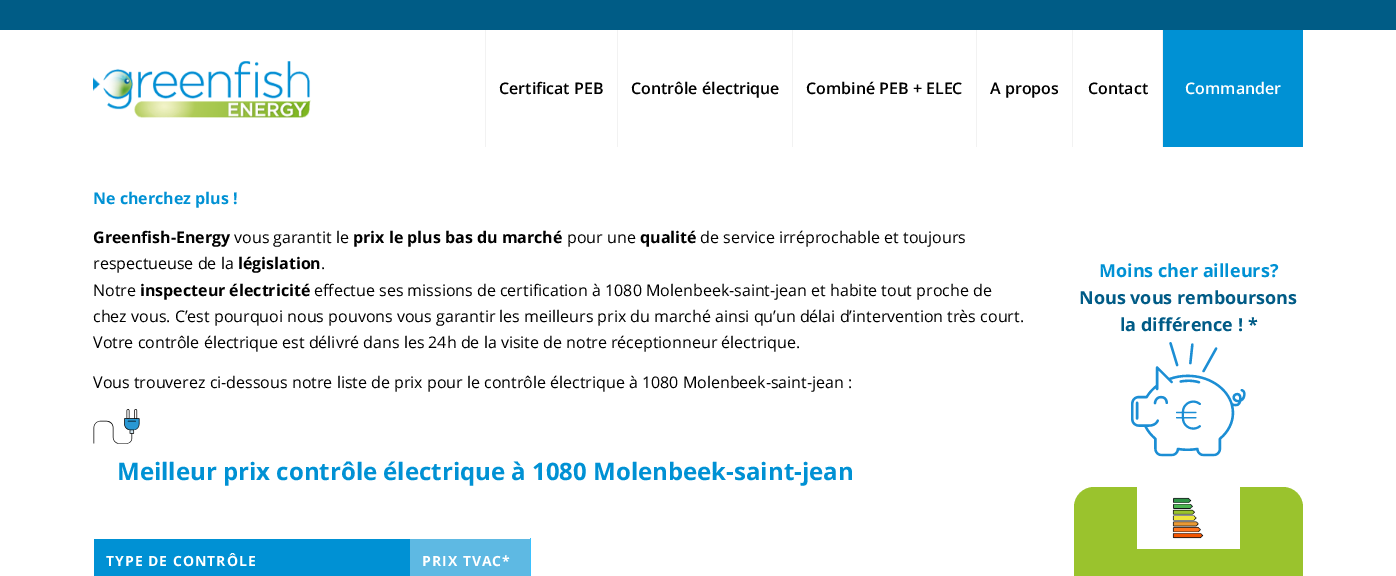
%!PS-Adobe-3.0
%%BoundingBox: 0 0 1396 576
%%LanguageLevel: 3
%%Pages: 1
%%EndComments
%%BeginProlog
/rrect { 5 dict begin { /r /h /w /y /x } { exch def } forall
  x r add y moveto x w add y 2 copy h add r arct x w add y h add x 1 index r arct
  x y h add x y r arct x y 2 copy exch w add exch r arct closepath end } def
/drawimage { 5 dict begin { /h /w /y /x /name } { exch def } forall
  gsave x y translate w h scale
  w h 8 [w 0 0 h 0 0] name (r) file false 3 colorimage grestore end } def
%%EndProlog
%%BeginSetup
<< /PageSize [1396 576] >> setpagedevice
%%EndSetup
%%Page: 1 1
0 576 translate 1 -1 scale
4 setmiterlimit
1 setgray
0 0 1396 576 rectfill
0.949 setgray
485 29 1 118 rectfill
617 29 1 118 rectfill
792 29 1 118 rectfill
976 29 1 118 rectfill
1072 29 1 118 rectfill
1162 29 1 118 rectfill
0 0.361 0.525 setrgbcolor
0 0 1396 30 rectfill
(images/1.raw) 93 61 218 57 drawimage
0 0.569 0.831 setrgbcolor
1163 30 140 117 rectfill
(images/2.raw) 93 409 47 35 drawimage
94 539 316 37 rectfill
0.369 0.725 0.89 setrgbcolor
410 539 120 37 rectfill
0.231 0.757 1 setrgbcolor
530 538 1 38 rectfill
(images/3.raw) 1131 342 115 115 drawimage
0.604 0.765 0.176 setrgbcolor
1074 487 229 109 20 rrect fill
1 setgray
1137 487 103 62 rectfill
(images/4.raw) 1172 497 32 42 drawimage
/OpenSans-SemiBold [16 0 0 -16 0 0] selectfont
0 setgray
499 94 moveto (Certificat PEB) show
631 94 moveto (Contrôle électrique) show
806 94 moveto (Combiné PEB + ELEC) show
990 94 moveto (A propos) show
1088 94 moveto (Contact) show
1 setgray
1185 94 moveto (Commander) show
/OpenSans-Bold [16 0 0 -16 0 0] selectfont
0 0.569 0.831 setrgbcolor
93 204 moveto (Ne cherchez plus !) show
0 setgray
93 243 moveto (Greenfish-Energy) show
/OpenSans-Regular [16 0 0 -16 0 0] selectfont
234 243 moveto (vous garantit le) show
/OpenSans-Bold [16 0 0 -16 0 0] selectfont
353 243 moveto (prix le plus bas du marché) show
/OpenSans-Regular [16 0 0 -16 0 0] selectfont
567 243 moveto (pour une) show
/OpenSans-Bold [16 0 0 -16 0 0] selectfont
640 243 moveto (qualité) show
/OpenSans-Regular [16 0 0 -16 0 0] selectfont
700 243 moveto (de service irréprochable et toujours) show
93 269 moveto (respectueuse de la) show
/OpenSans-Bold [16 0 0 -16 0 0] selectfont
238 269 moveto (législation) show
/OpenSans-Regular [16 0 0 -16 0 0] selectfont
321 269 moveto (.) show
93 296 moveto (Notre) show
/OpenSans-Bold [16 0 0 -16 0 0] selectfont
140 296 moveto (inspecteur électricité) show
/OpenSans-Regular [16 0 0 -16 0 0] selectfont
314 296 moveto (effectue ses missions de certification à 1080 Molenbeek-saint-jean et habite tout proche de) show
93 322 moveto (chez vous. C’est pourquoi nous pouvons vous garantir les meilleurs prix du marché ainsi qu’un délai d’intervention très court.) show
93 348 moveto (Votre contrôle électrique est délivré dans les 24h de la visite de notre réceptionneur électrique.) show
93 388 moveto (Vous trouverez ci-dessous notre liste de prix pour le contrôle électrique à 1080 Molenbeek-saint-jean :) show
/OpenSans-Bold [24 0 0 -24 0 0] selectfont
0 0.569 0.831 setrgbcolor
117 480 moveto (Meilleur prix contrôle électrique à 1080 Molenbeek-saint-jean) show
/OpenSans-Bold [14 0 0 -14 0 0] selectfont
1 setgray
106 566 moveto 1 0 (TYPE DE CONTRÔLE) ashow
422 566 moveto 1 0 (PRIX TVAC*) ashow
/OpenSans-Bold [18 0 0 -18 0 0] selectfont
0 0.569 0.831 setrgbcolor
1099 277 moveto (Moins cher ailleurs?) show
0 0.357 0.525 setrgbcolor
1079 304 moveto (Nous vous remboursons) show
1120 331 moveto (la différence ! *) show
showpage
%%EOF
